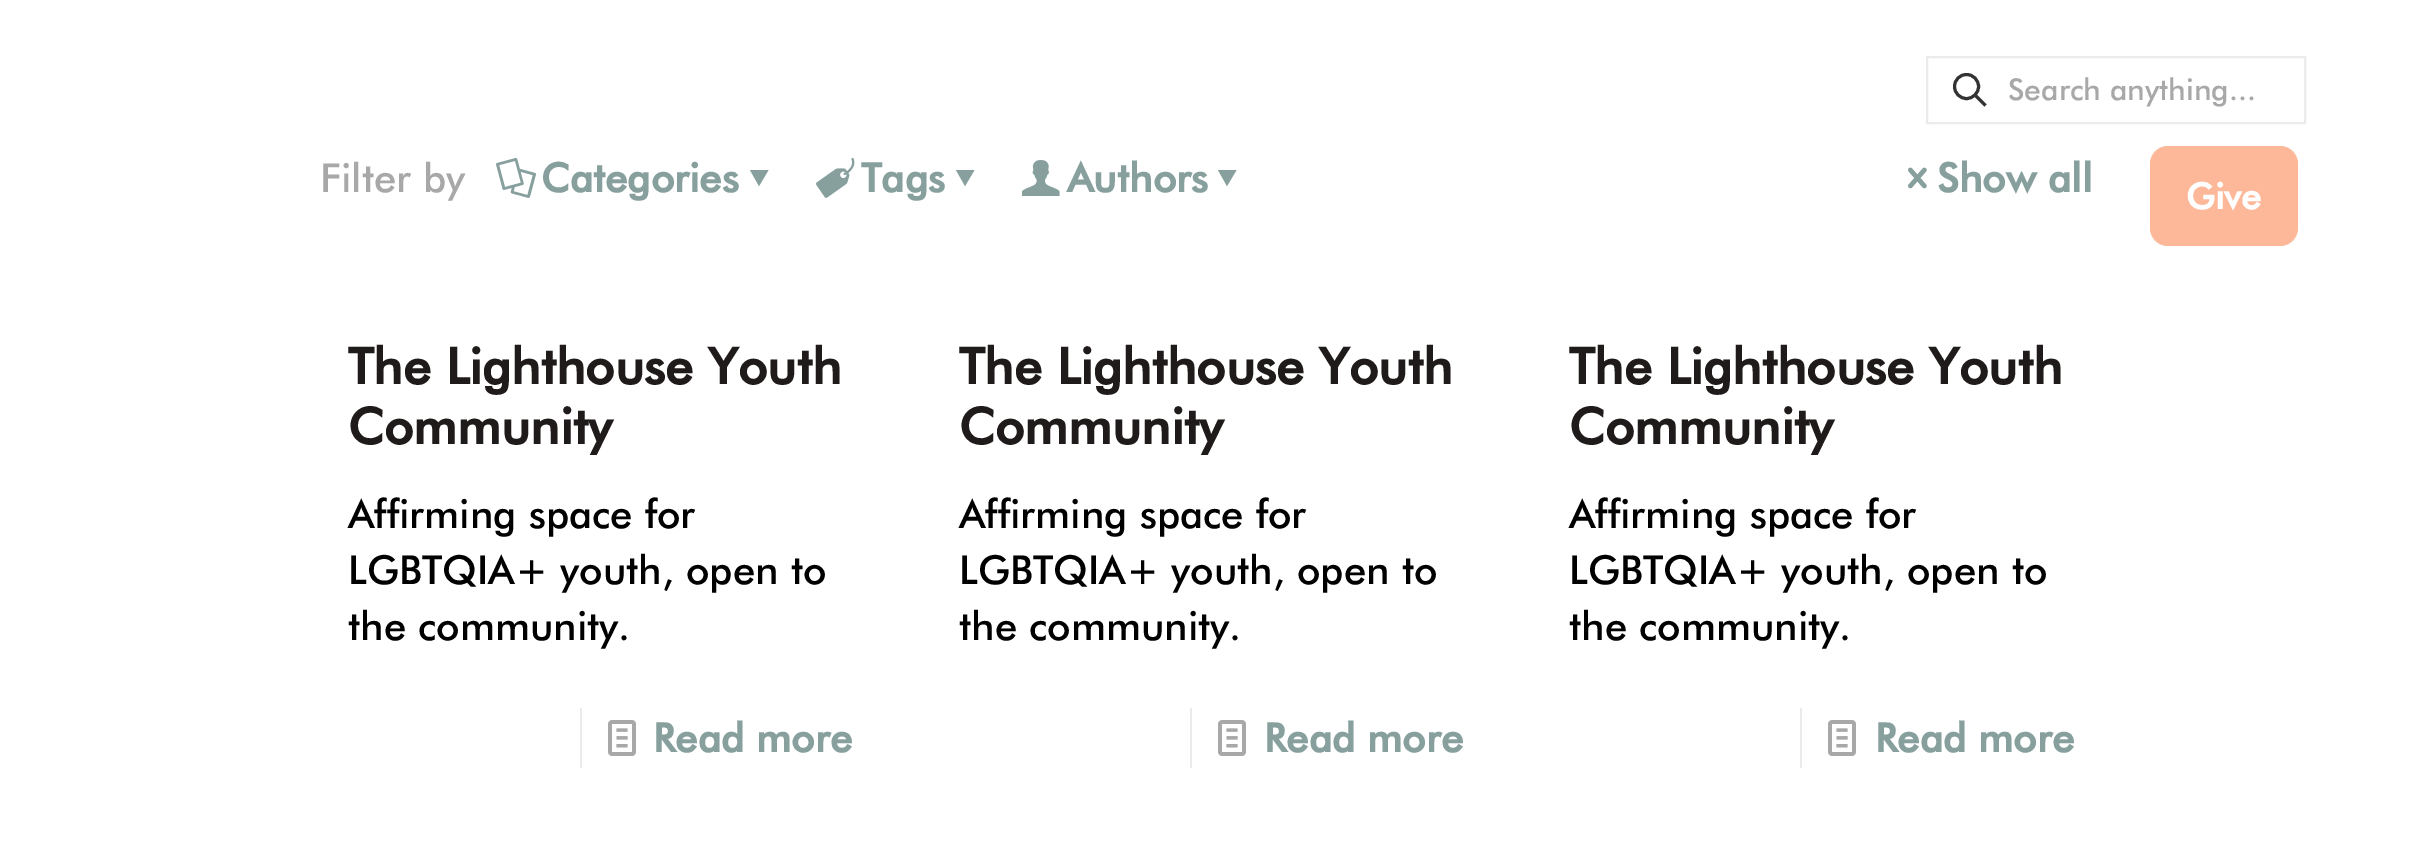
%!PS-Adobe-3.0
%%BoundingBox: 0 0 2411 863
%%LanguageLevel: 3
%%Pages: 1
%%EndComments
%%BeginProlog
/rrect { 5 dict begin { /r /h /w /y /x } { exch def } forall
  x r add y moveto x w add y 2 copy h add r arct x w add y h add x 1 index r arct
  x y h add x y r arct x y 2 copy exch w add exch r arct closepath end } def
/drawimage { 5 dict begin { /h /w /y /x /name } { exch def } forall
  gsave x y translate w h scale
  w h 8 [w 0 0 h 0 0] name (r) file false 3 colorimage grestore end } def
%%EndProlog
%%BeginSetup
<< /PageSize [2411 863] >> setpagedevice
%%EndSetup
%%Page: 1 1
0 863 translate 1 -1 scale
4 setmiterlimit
1 setgray
0 0 2411 863 rectfill
0.922 setgray
2 setlinewidth
1927 57 378 66 rectstroke
0.2 setgray
3 setlinewidth
newpath 1966.5 86.5 12 0 360 arc closepath stroke
newpath 1975 95 moveto 1985.5 105.5 lineto stroke
0.992 0.722 0.6 setrgbcolor
2150 146 148 100 18 rrect fill
(images/1.raw) 496 158 40 40 drawimage
0.529 0.627 0.62 setrgbcolor
newpath 768.5 170 moveto 759 186 lineto 750 170 lineto closepath fill
(images/2.raw) 816 157 39 41 drawimage
newpath 974.5 170 moveto 965 186 lineto 956 170 lineto closepath fill
(images/3.raw) 1022 160 38 36 drawimage
newpath 1236.5 170 moveto 1227 186 lineto 1218 170 lineto closepath fill
(images/4.raw) 1908 167 19 22 drawimage
0.922 setgray
580 708 2 60 rectfill
(images/5.raw) 608 720 28 36 drawimage
1190 708 2 60 rectfill
(images/5.raw) 1218 720 28 36 drawimage
1800 708 2 60 rectfill
(images/5.raw) 1828 720 28 36 drawimage
/Futura-Medium [30 0 0 -30 0 0] selectfont
0.659 setgray
2008 100 moveto (Search anything...) show
/Futura-Bold [36 0 0 -36 0 0] selectfont
1 setgray
2186 209 moveto (Give) show
/Futura-Medium [40 0 0 -40 0 0] selectfont
0.659 setgray
320 192 moveto (Filter by) show
/Futura-Bold [40 0 0 -40 0 0] selectfont
0.529 0.627 0.62 setrgbcolor
541 192 moveto (Categories) show
861 192 moveto (Tags) show
1067 192 moveto (Authors) show
1937 192 moveto (Show all) show
/Futura-Bold [50 0 0 -50 0 0] selectfont
0.122 0.106 0.102 setrgbcolor
348 384 moveto (The Lighthouse Youth) show
348 444 moveto (Community) show
/Futura-Medium [40 0 0 -40 0 0] selectfont
0 setgray
348 528 moveto (Affirming space for) show
348 584 moveto (LGBTQIA+ youth, open to) show
348 640 moveto (the community.) show
/Futura-Bold [40 0 0 -40 0 0] selectfont
0.529 0.627 0.62 setrgbcolor
653 752 moveto (Read more) show
/Futura-Bold [50 0 0 -50 0 0] selectfont
0.122 0.106 0.102 setrgbcolor
959 384 moveto (The Lighthouse Youth) show
959 444 moveto (Community) show
/Futura-Medium [40 0 0 -40 0 0] selectfont
0 setgray
959 528 moveto (Affirming space for) show
959 584 moveto (LGBTQIA+ youth, open to) show
959 640 moveto (the community.) show
/Futura-Bold [40 0 0 -40 0 0] selectfont
0.529 0.627 0.62 setrgbcolor
1264 752 moveto (Read more) show
/Futura-Bold [50 0 0 -50 0 0] selectfont
0.122 0.106 0.102 setrgbcolor
1569 384 moveto (The Lighthouse Youth) show
1569 444 moveto (Community) show
/Futura-Medium [40 0 0 -40 0 0] selectfont
0 setgray
1569 528 moveto (Affirming space for) show
1569 584 moveto (LGBTQIA+ youth, open to) show
1569 640 moveto (the community.) show
/Futura-Bold [40 0 0 -40 0 0] selectfont
0.529 0.627 0.62 setrgbcolor
1875 752 moveto (Read more) show
showpage
%%EOF
